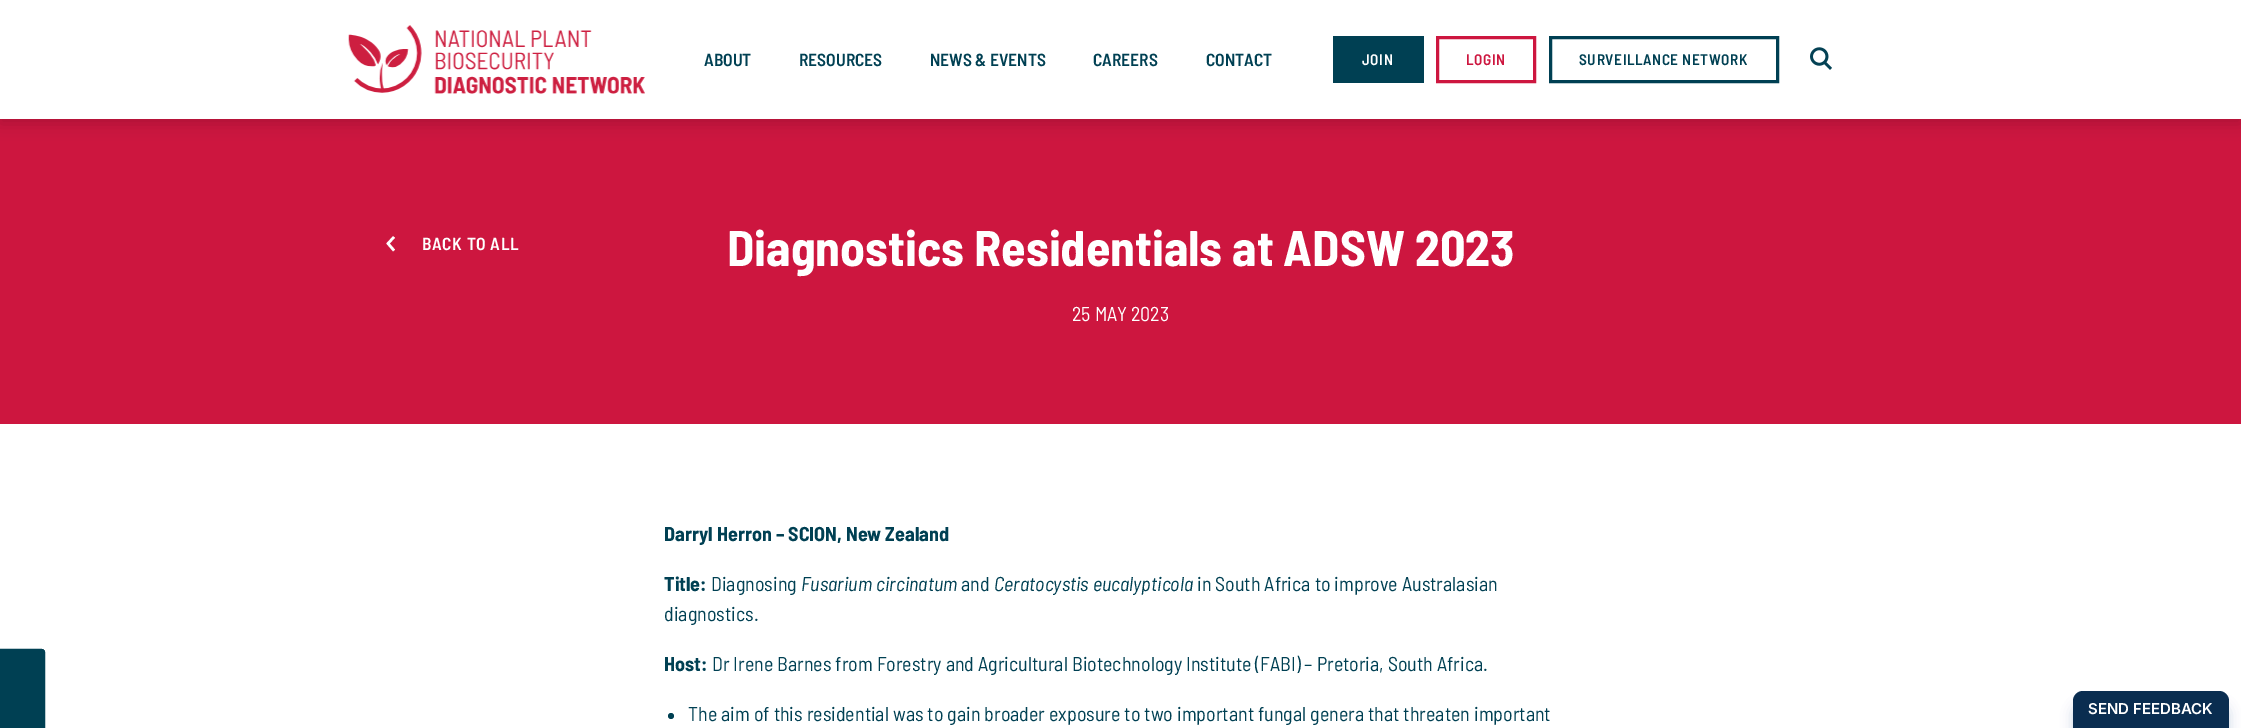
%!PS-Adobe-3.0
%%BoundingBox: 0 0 2241 728
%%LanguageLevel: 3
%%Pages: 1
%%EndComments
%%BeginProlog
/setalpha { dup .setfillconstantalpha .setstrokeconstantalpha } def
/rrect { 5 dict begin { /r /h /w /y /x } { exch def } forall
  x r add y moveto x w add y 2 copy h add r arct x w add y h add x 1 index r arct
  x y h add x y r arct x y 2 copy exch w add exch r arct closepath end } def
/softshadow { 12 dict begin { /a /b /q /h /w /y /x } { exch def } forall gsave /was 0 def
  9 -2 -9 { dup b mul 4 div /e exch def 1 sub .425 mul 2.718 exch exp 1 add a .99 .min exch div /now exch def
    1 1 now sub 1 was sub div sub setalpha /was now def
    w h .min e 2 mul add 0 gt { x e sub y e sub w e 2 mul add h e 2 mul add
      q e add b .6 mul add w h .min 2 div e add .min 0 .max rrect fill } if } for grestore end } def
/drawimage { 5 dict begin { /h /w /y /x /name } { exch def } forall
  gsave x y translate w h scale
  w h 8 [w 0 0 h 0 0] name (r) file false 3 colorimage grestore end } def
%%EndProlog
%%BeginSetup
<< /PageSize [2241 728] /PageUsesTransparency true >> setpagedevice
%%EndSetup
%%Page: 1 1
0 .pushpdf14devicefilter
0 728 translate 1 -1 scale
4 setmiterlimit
1 setgray
0 0 2241 728 rectfill
0.804 0.086 0.247 setrgbcolor
0 119 2241 305 rectfill
0 setgray
0 5 2241 119 0 7.5 0.15 softshadow
1 setgray
0 0 2241 119 rectfill
(images/1.raw) 348 25 297 69 drawimage
0 0.251 0.325 setrgbcolor
1333 36 91 47 rectfill
0.804 0.086 0.247 setrgbcolor
3 setlinewidth
1437.5 37.5 97 44 rectstroke
0 0.251 0.325 setrgbcolor
1550.5 37.5 227 44 rectstroke
(images/2.raw) 1810 47 22 23 drawimage
newpath 45 652 moveto 45 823 lineto 45 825 43 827 41 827 curveto 0 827 lineto 0 649 lineto 41 649 lineto 43 649 45 650 45 652 curveto closepath fill
1.2 setlinewidth
newpath 44.5 652.5 moveto 44.5 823.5 lineto 44.5 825 43 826.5 41 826.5 curveto 0.5 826.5 lineto 0.5 649.5 lineto 41 649.5 lineto 43 649.5 44.5 651 44.5 652.5 curveto closepath stroke
1 setgray
2.5 setlinewidth
newpath 394 250.5 moveto 388 243.5 lineto 394 237 lineto stroke
0 0.251 0.325 setrgbcolor
newpath 671 716 3 0 360 arc closepath fill
0 0.224 0.502 setrgbcolor
2073 704 156 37 10 6 0.2 softshadow
0.039 0.176 0.314 setrgbcolor
newpath 2083 691 moveto 2219 691 lineto 2224.5 691 2229 695.5 2229 701 curveto 2229 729 lineto 2073 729 lineto 2073 701 lineto 2073 695.5 2077.5 691 2083 691 curveto closepath fill
/BarlowSemiCondensed-SemiBold [17.5 0 0 -17.5 0 0] selectfont
0 0.251 0.325 setrgbcolor
704 66 moveto (ABOUT) show
799 66 moveto (RESOURCES) show
930 66 moveto (NEWS & EVENTS) show
1093 66 moveto (CAREERS) show
1206 66 moveto (CONTACT) show
/BarlowSemiCondensed-SemiBold [15.25 0 0 -15.25 0 0] selectfont
1 setgray
1362 65 moveto 0.6 0 (JOIN) ashow
0.804 0.086 0.247 setrgbcolor
1466 65 moveto 0.6 0 (LOGIN) ashow
0 0.251 0.325 setrgbcolor
1579 65 moveto 0.6 0 (SURVEILLANCE NETWORK) ashow
/BarlowSemiCondensed-SemiBold [17.5 0 0 -17.5 0 0] selectfont
1 setgray
422 250 moveto 0.6 0 (BACK TO ALL) ashow
/BarlowSemiCondensed-Bold [50 0 0 -50 0 0] selectfont
727 266 moveto (Diagnostics Residentials at ADSW 2023) show
/BarlowSemiCondensed-Regular [20 0 0 -20 0 0] selectfont
1072 321 moveto (25 MAY 2023) show
/BarlowSemiCondensed-Bold [20 0 0 -20 0 0] selectfont
0 0.251 0.325 setrgbcolor
664 541 moveto (Darryl Herron – SCION, New Zealand) show
664 591 moveto (Title:) show
/BarlowSemiCondensed-Regular [20 0 0 -20 0 0] selectfont
711 591 moveto (Diagnosing) show
/BarlowSemiCondensed-Italic [20 0 0 -20 0 0] selectfont
801 591 moveto (Fusarium circinatum) show
/BarlowSemiCondensed-Regular [20 0 0 -20 0 0] selectfont
961 591 moveto (and) show
/BarlowSemiCondensed-Italic [20 0 0 -20 0 0] selectfont
994 591 moveto (Ceratocystis eucalypticola) show
/BarlowSemiCondensed-Regular [20 0 0 -20 0 0] selectfont
1197 591 moveto (in South Africa to improve Australasian) show
664 621 moveto (diagnostics.) show
/BarlowSemiCondensed-Bold [20 0 0 -20 0 0] selectfont
664 671 moveto (Host:) show
/BarlowSemiCondensed-Regular [20 0 0 -20 0 0] selectfont
712 671 moveto (Dr Irene Barnes from Forestry and Agricultural Biotechnology Institute \(FABI\) – Pretoria, South Africa.) show
688 721 moveto (The aim of this residential was to gain broader exposure to two important fungal genera that threaten important) show
/Inter-SemiBold [15 0 0 -15 0 0] selectfont
1 setgray
2088 714 moveto (SEND FEEDBACK) show
.poppdf14devicefilter showpage
%%EOF
